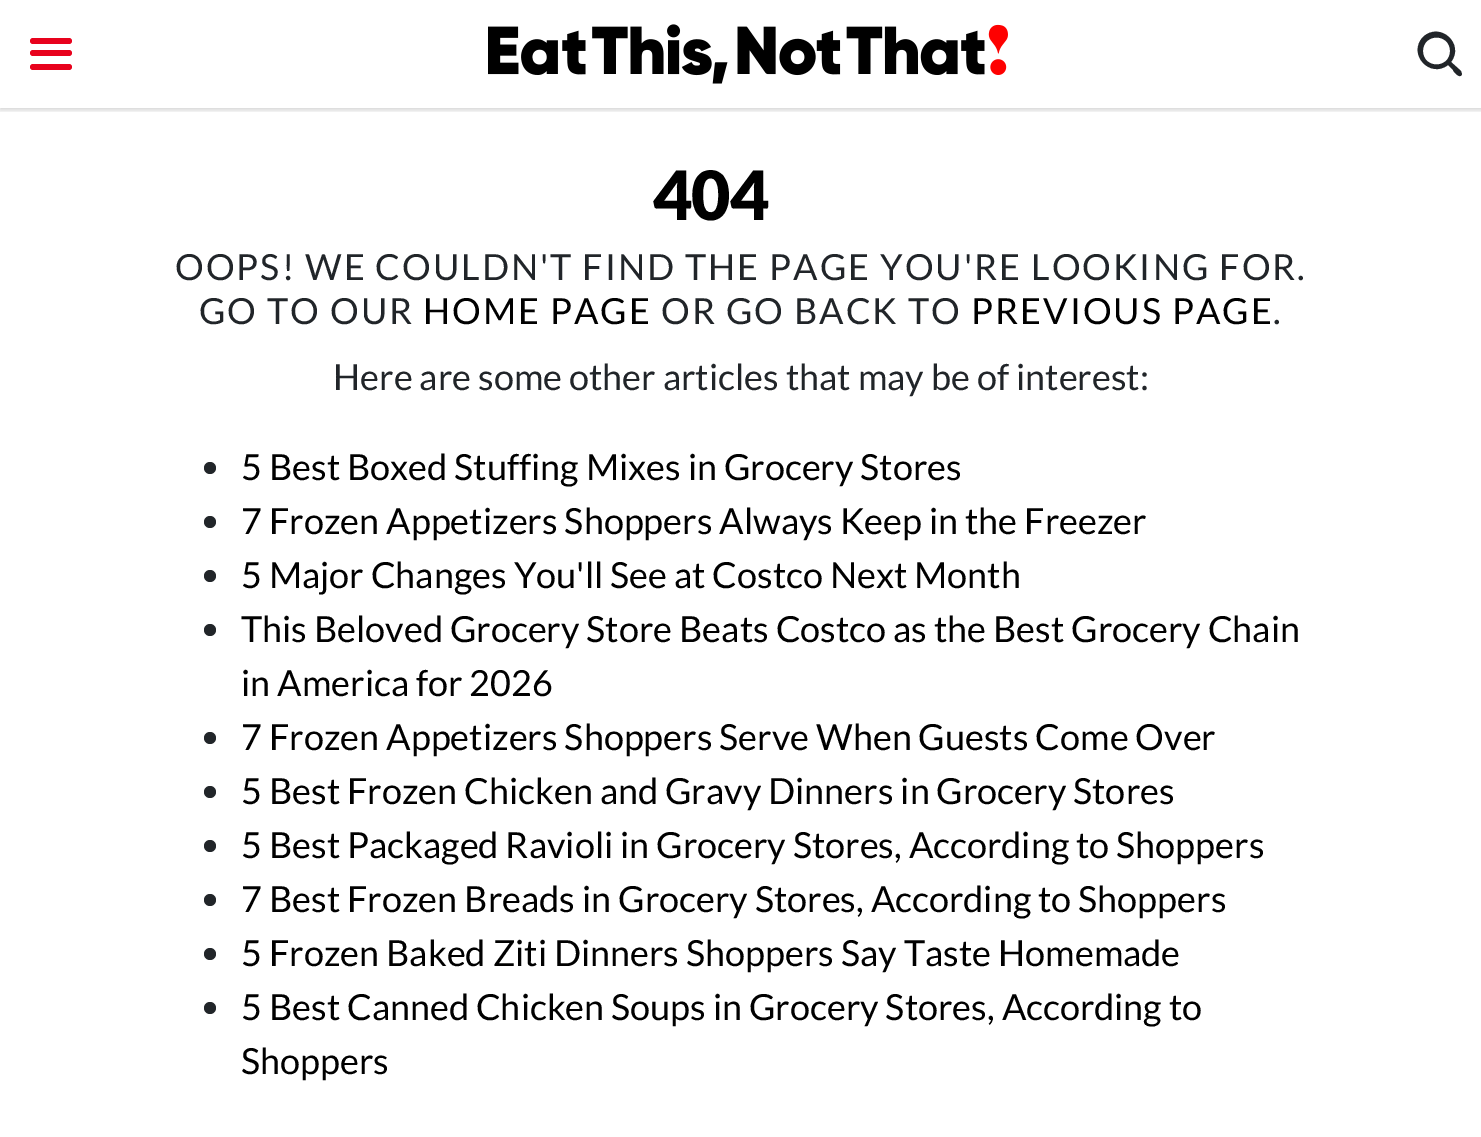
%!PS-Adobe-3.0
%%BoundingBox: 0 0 1481 1137
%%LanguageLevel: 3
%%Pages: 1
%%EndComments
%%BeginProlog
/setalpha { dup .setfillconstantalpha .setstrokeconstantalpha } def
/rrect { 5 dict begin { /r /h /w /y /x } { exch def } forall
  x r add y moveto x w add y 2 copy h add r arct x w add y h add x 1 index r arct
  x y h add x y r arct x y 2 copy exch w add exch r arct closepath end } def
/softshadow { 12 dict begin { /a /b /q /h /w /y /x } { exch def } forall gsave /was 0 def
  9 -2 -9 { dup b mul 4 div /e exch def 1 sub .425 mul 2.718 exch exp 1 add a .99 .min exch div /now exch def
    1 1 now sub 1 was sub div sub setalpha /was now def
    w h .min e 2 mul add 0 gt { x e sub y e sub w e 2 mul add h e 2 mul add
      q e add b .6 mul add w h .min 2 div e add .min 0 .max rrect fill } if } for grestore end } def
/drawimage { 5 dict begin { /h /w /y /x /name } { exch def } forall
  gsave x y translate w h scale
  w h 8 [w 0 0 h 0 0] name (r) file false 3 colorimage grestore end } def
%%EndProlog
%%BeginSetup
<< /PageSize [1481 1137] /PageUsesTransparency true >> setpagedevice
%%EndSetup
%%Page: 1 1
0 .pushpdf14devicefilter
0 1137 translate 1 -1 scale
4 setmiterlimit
1 setgray
0 0 1481 1137 rectfill
gsave
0 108 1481 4 rectclip
0 setgray
0 2 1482 108 0 3 0.09 softshadow
0 2 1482 108 0 3 0.09 softshadow
grestore
0.91 0.008 0.114 setrgbcolor
30 38 42 6 3 rrect fill
30 50 42 6 3 rrect fill
30 64 42 6 3 rrect fill
(images/1.raw) 488 24 520 60 drawimage
0.129 0.145 0.161 setrgbcolor
newpath 1461 71 moveto 1451 62 lineto 1465 44 1440 21 1423 37 curveto 1407 54 1430 79 1448 65 curveto 1453 70 lineto 1453 71 1460 80 1462 74 curveto closepath 1423 51 moveto 1423 33 1450 33 1450 51 curveto 1450 69 1423 69 1423 51 curveto closepath fill
newpath 210 468 6 0 360 arc closepath fill
newpath 210 522 6 0 360 arc closepath fill
newpath 210 576 6 0 360 arc closepath fill
newpath 210 630 6 0 360 arc closepath fill
newpath 210 738 6 0 360 arc closepath fill
newpath 210 792 6 0 360 arc closepath fill
newpath 210 846 6 0 360 arc closepath fill
newpath 210 900 6 0 360 arc closepath fill
newpath 210 954 6 0 360 arc closepath fill
newpath 210 1008 6 0 360 arc closepath fill
/Lato-Black [68 0 0 -68 0 0] selectfont
0 setgray
653 220 moveto -1 0 (404) ashow
/Lato-Regular [36 0 0 -36 0 0] selectfont
0.129 0.145 0.161 setrgbcolor
175 280 moveto 2 0 (OOPS! WE COULDN'T FIND THE PAGE YOU'RE LOOKING FOR.) ashow
199 324 moveto 2 0 (GO TO OUR) ashow
0 setgray
423 324 moveto 2 0 (HOME PAGE) ashow
0.129 0.145 0.161 setrgbcolor
661 324 moveto 2 0 (OR GO BACK TO) ashow
0 setgray
971 324 moveto 2 0 (PREVIOUS PAGE) ashow
0.129 0.145 0.161 setrgbcolor
1273 324 moveto 2 0 (.) ashow
333 390 moveto (Here are some other articles that may be of interest:) show
0 setgray
241 480 moveto (5 Best Boxed Stuffing Mixes in Grocery Stores) show
241 534 moveto (7 Frozen Appetizers Shoppers Always Keep in the Freezer) show
241 588 moveto (5 Major Changes You'll See at Costco Next Month) show
241 642 moveto (This Beloved Grocery Store Beats Costco as the Best Grocery Chain) show
241 696 moveto (in America for 2026) show
241 750 moveto (7 Frozen Appetizers Shoppers Serve When Guests Come Over) show
241 804 moveto (5 Best Frozen Chicken and Gravy Dinners in Grocery Stores) show
241 858 moveto (5 Best Packaged Ravioli in Grocery Stores, According to Shoppers) show
241 912 moveto (7 Best Frozen Breads in Grocery Stores, According to Shoppers) show
241 966 moveto (5 Frozen Baked Ziti Dinners Shoppers Say Taste Homemade) show
241 1020 moveto (5 Best Canned Chicken Soups in Grocery Stores, According to) show
241 1074 moveto (Shoppers) show
.poppdf14devicefilter showpage
%%EOF
